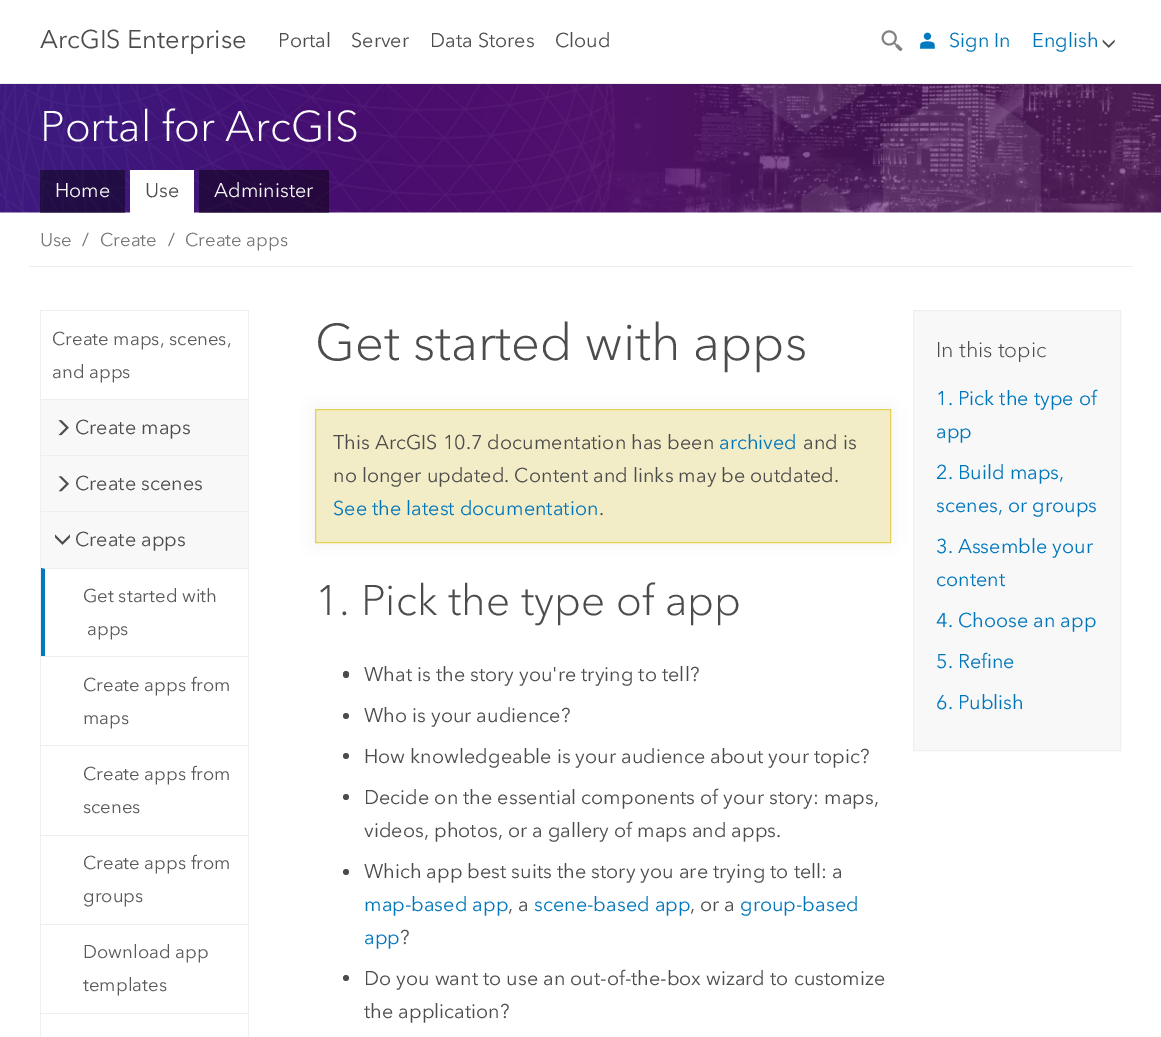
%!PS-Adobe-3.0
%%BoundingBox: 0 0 1161 1037
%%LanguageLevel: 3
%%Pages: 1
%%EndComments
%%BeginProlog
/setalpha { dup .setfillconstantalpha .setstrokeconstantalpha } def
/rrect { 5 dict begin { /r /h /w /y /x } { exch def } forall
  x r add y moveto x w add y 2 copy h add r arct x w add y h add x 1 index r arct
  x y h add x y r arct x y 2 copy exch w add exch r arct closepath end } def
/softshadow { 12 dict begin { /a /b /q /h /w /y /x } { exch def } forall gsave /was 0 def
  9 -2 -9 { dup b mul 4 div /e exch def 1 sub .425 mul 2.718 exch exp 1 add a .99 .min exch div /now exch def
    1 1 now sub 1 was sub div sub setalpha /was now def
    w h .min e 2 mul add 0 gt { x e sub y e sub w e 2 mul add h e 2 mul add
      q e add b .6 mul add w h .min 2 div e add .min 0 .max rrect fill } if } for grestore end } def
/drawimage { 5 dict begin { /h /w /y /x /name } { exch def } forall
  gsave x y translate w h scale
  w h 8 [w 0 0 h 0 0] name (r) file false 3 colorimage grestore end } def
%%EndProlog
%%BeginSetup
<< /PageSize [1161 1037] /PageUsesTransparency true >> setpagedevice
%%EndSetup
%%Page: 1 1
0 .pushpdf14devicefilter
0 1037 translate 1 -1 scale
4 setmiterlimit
1 setgray
0 0 1161 1037 rectfill
0.937 setgray
0 83 1161 1 rectfill
(images/1.raw) 881 30 22 21 drawimage
(images/2.raw) 920 32 15 17 drawimage
(images/3.raw) 1102 39 13 9 drawimage
(images/4.raw) 0 84 1161 129 drawimage
0.45 setalpha
0 setgray
40 170 85 43 rectfill
1 setalpha
1 setgray
130 170 64 43 rectfill
0.45 setalpha
0 setgray
199 170 130 43 rectfill
1 setalpha
0.929 setgray
29 266 1104 1 rectfill
0.937 setgray
248 310 1 727 rectfill
40 310 1 727 rectfill
41 310 207 1 rectfill
0.973 setgray
41 400 207 55 rectfill
0.937 setgray
41 399 207 1 rectfill
(images/5.raw) 58 420 11 16 drawimage
0.973 setgray
41 456 207 55 rectfill
0.937 setgray
41 455 207 1 rectfill
(images/6.raw) 58 476 11 16 drawimage
0.973 setgray
41 512 207 56 rectfill
0.937 setgray
41 511 207 1 rectfill
(images/7.raw) 55 534 15 11 drawimage
newpath 41 568 moveto 248 568 lineto 248 569 lineto 45 569 lineto closepath fill
0 0.475 0.757 setrgbcolor
newpath 41 656 moveto 41 568 lineto 45 569 lineto 45 656 lineto closepath fill
0.937 setgray
41 656 207 1 rectfill
41 745 207 1 rectfill
41 835 207 1 rectfill
41 924 207 1 rectfill
41 1013 207 1 rectfill
0 setgray
315 409 576 134 0 10 0.05 softshadow
0.953 0.929 0.78 setrgbcolor
newpath 315.5 409.5 moveto 890.5 409.5 lineto 890.5 542.5 lineto 315.5 542.5 lineto closepath gsave fill grestore
0.894 0.82 0.329 setrgbcolor
stroke
0.298 setgray
343 671 6 7 3 rrect fill
newpath 346 716 3 0 360 arc closepath fill
newpath 346 756 3 0 360 arc closepath fill
newpath 346 797 3 0 360 arc closepath fill
newpath 346 872 3 0 360 arc closepath fill
newpath 346 978 3 0 360 arc closepath fill
0.973 setgray
newpath 913.5 310.5 moveto 1120.5 310.5 lineto 1120.5 750.5 lineto 913.5 750.5 lineto closepath gsave fill grestore
0.937 setgray
stroke
/AvenirNext-Regular [25.5 0 0 -25.5 0 0] selectfont
0.298 setgray
40 48 moveto (ArcGIS Enterprise) show
/AvenirNext-Regular [19.9 0 0 -19.9 0 0] selectfont
278 47 moveto (Portal) show
351 47 moveto (Server) show
430 47 moveto (Data Stores) show
555 47 moveto (Cloud) show
0 0.463 0.737 setrgbcolor
949 47 moveto (Sign In) show
1032 47 moveto (English) show
/AvenirNext-Light [42.5 0 0 -42.5 0 0] selectfont
1 setgray
40 141 moveto (Portal for ArcGIS) show
/AvenirNext-Regular [19.9 0 0 -19.9 0 0] selectfont
0.973 setgray
55 197 moveto (Home) show
0.298 setgray
145 197 moveto (Use) show
0.973 setgray
214 197 moveto (Administer) show
/AvenirNext-Regular [18.5 0 0 -18.5 0 0] selectfont
0.459 setgray
40 246 moveto (Use) show
0.431 setgray
82 246 moveto (/) show
0.459 setgray
100 246 moveto (Create) show
0.431 setgray
168 246 moveto (/) show
0.459 setgray
185 246 moveto (Create apps) show
0.349 setgray
52 345 moveto (Create maps, scenes,) show
52 378 moveto (and apps) show
/AvenirNext-Regular [19.9 0 0 -19.9 0 0] selectfont
0.298 setgray
75 434 moveto (Create maps) show
75 490 moveto (Create scenes) show
75 546 moveto (Create apps) show
/AvenirNext-Regular [18.5 0 0 -18.5 0 0] selectfont
0.349 setgray
83 602 moveto (Get started with) show
87 635 moveto (apps) show
83 691 moveto (Create apps from) show
83 724 moveto (maps) show
83 780 moveto (Create apps from) show
83 813 moveto (scenes) show
83 869 moveto (Create apps from) show
83 902 moveto (groups) show
83 958 moveto (Download app) show
83 991 moveto (templates) show
/AvenirNext-Light [51 0 0 -51 0 0] selectfont
0.298 setgray
315 360 moveto (Get started with apps) show
/AvenirNext-Regular [19.9 0 0 -19.9 0 0] selectfont
333 449 moveto (This ArcGIS 10.7 documentation has been) show
0 0.463 0.737 setrgbcolor
719 449 moveto (archived) show
0.298 setgray
803 449 moveto (and is) show
333 482 moveto (no longer updated. Content and links may be outdated.) show
0 0.463 0.737 setrgbcolor
333 515 moveto (See the latest documentation) show
0.298 setgray
599 515 moveto (.) show
/AvenirNext-Light [42.5 0 0 -42.5 0 0] selectfont
315 615 moveto (1. Pick the type of app) show
/AvenirNext-Regular [19.9 0 0 -19.9 0 0] selectfont
364 681 moveto (What is the story you're trying to tell?) show
364 722 moveto (Who is your audience?) show
364 763 moveto (How knowledgeable is your audience about your topic?) show
364 804 moveto (Decide on the essential components of your story: maps,) show
364 837 moveto (videos, photos, or a gallery of maps and apps.) show
364 878 moveto (Which app best suits the story you are trying to tell: a) show
0 0.463 0.737 setrgbcolor
364 911 moveto (map-based app) show
0.298 setgray
508 911 moveto (, a) show
0 0.463 0.737 setrgbcolor
534 911 moveto (scene-based app) show
0.298 setgray
690 911 moveto (, or a) show
0 0.463 0.737 setrgbcolor
740 911 moveto (group-based) show
364 944 moveto (app) show
0.298 setgray
400 944 moveto (?) show
364 985 moveto (Do you want to use an out-of-the-box wizard to customize) show
364 1018 moveto (the application?) show
/AvenirNext-Light [21.25 0 0 -21.25 0 0] selectfont
936 357 moveto (In this topic) show
/AvenirNext-Regular [19.9 0 0 -19.9 0 0] selectfont
0 0.463 0.737 setrgbcolor
936 405 moveto (1. Pick the type of) show
936 438 moveto (app) show
936 479 moveto (2. Build maps,) show
936 512 moveto (scenes, or groups) show
936 553 moveto (3. Assemble your) show
936 586 moveto (content) show
936 627 moveto (4. Choose an app) show
936 668 moveto (5. Refine) show
936 709 moveto (6. Publish) show
.poppdf14devicefilter showpage
%%EOF
